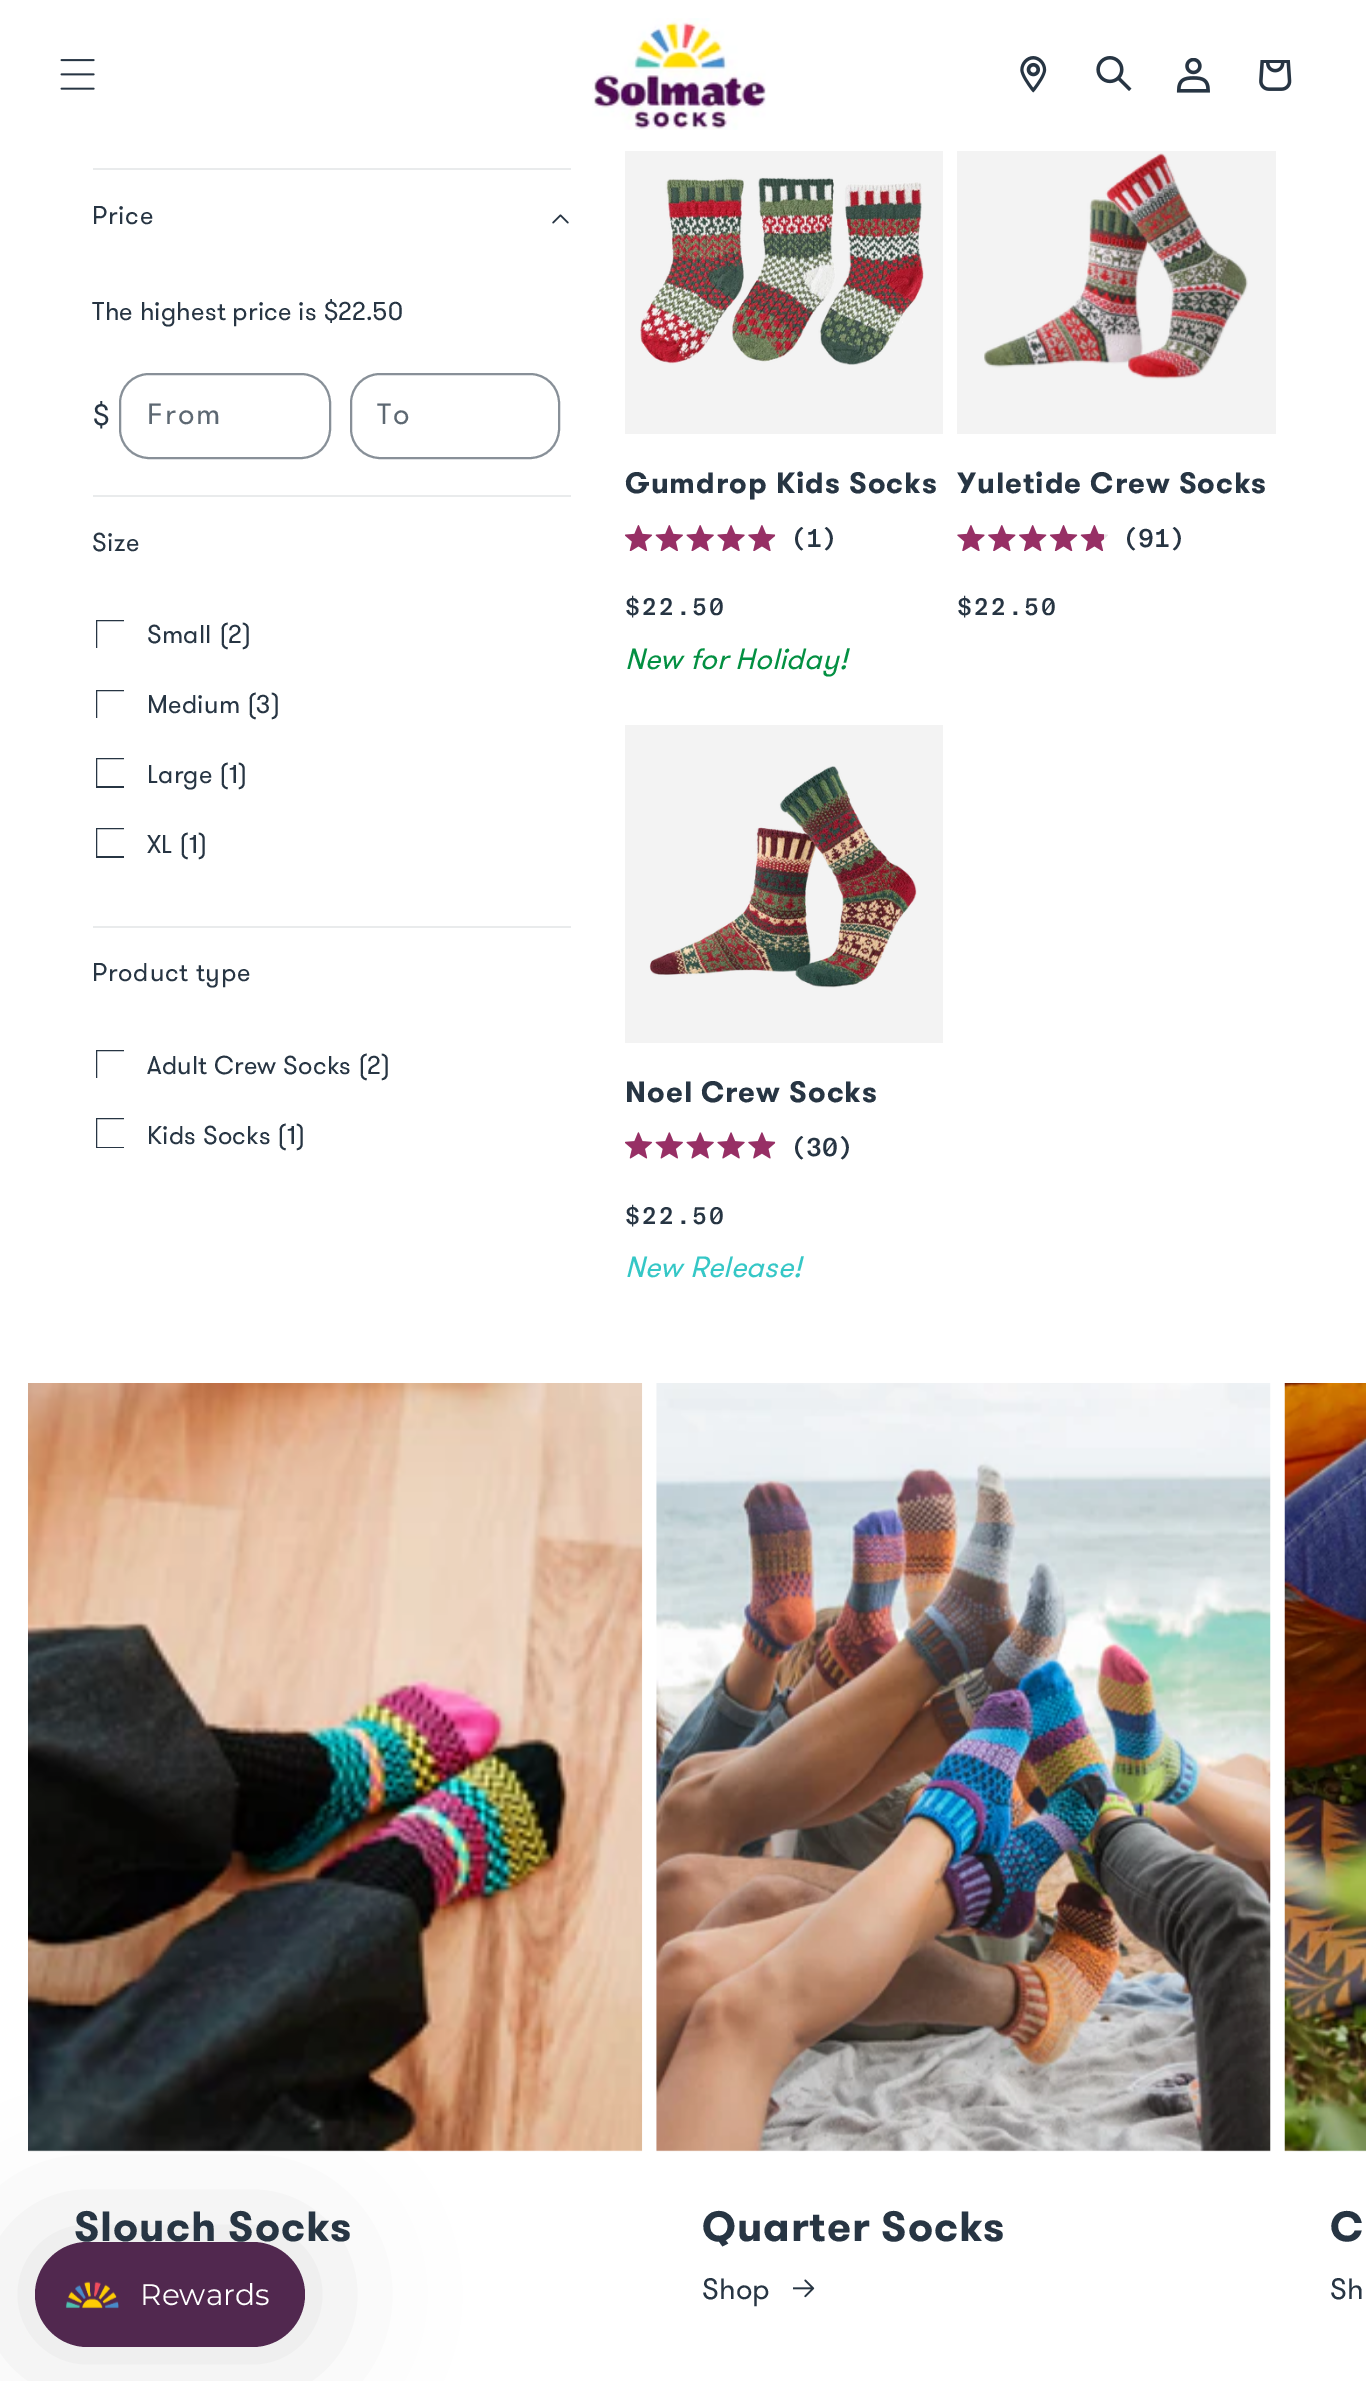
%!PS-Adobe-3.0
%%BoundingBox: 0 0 1366 2381
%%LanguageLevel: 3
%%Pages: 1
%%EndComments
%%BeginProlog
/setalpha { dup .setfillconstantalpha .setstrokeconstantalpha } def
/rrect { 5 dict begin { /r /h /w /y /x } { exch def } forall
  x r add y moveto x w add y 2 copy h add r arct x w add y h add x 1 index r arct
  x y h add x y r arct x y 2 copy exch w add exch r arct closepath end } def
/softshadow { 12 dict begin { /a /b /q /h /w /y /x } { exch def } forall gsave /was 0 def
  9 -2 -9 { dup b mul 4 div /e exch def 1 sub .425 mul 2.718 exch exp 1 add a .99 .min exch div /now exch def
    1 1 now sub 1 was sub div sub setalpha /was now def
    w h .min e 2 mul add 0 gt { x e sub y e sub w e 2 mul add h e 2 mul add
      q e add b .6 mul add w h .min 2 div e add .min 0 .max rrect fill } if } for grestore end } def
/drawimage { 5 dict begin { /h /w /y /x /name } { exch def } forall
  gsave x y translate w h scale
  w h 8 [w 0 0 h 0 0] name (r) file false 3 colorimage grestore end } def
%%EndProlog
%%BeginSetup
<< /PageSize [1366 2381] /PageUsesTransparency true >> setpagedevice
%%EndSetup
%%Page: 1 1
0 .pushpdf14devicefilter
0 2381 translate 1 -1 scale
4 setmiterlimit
1 setgray
0 0 1366 2381 rectfill
(images/1.raw) 60 59 35 31 drawimage
(images/2.raw) 592 18 174 112 drawimage
(images/3.raw) 1020 56 27 37 drawimage
(images/4.raw) 1096 56 36 35 drawimage
(images/5.raw) 1176 58 34 35 drawimage
(images/6.raw) 1259 60 33 31 drawimage
0.914 0.922 0.925 setrgbcolor
93 168 478 2 rectfill
(images/7.raw) 552 214 17 10 drawimage
0.533 0.565 0.596 setrgbcolor
2 setlinewidth
120 374 210 84 29 rrect stroke
351 374 208 84 29 rrect stroke
0.914 0.922 0.925 setrgbcolor
93 495 478 2 rectfill
gsave
96 620 28 28 rectclip
0.153 0.208 0.263 setrgbcolor
96 620 30 29 rectstroke
grestore
gsave
96 690 28 28 rectclip
0.153 0.208 0.263 setrgbcolor
96 690 30 29 rectstroke
grestore
gsave
96 758 28 30 rectclip
0.153 0.208 0.263 setrgbcolor
96 758 30 29 rectstroke
grestore
gsave
96 828 28 30 rectclip
0.153 0.208 0.263 setrgbcolor
96 828 30 29 rectstroke
grestore
93 926 478 2 rectfill
gsave
96 1050 28 28 rectclip
0.153 0.208 0.263 setrgbcolor
96 1050 30 29 rectstroke
grestore
gsave
96 1118 28 30 rectclip
0.153 0.208 0.263 setrgbcolor
96 1118 30 30 rectstroke
grestore
0.953 setgray
625 151 318 283 rectfill
(images/8.raw) 640 177 284 188 drawimage
(images/9.raw) 625 525 151 26 drawimage
(images/10.raw) 625 525 150 26 drawimage
957 151 319 283 rectfill
(images/11.raw) 984 153 264 227 drawimage
(images/12.raw) 957 525 151 26 drawimage
(images/13.raw) 957 525 147 26 drawimage
625 725 318 318 rectfill
(images/14.raw) 649 766 268 222 drawimage
(images/15.raw) 625 1132 151 27 drawimage
(images/16.raw) 625 1132 150 27 drawimage
(images/17.raw) 28 1383 615 769 drawimage
(images/18.raw) 656 1383 615 769 drawimage
(images/19.raw) 793 2279 22 19 drawimage
(images/20.raw) 1284 1383 82 769 drawimage
0 setgray
35 2242 270 105 52.5 70 0.12 softshadow
0.318 0.157 0.31 setrgbcolor
35 2242 270 105 52.5 rrect fill
(images/21.raw) 65 2281 54 28 drawimage
/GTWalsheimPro-Regular [25.75 0 0 -25.75 0 0] selectfont
0.153 0.208 0.263 setrgbcolor
92 224 moveto 0.75 0 (Price) ashow
92 320 moveto 0.2 0 (The highest price is $22.50) ashow
/GTWalsheimPro-Regular [29.4 0 0 -29.4 0 0] selectfont
92 425 moveto 0.2 0 ($) ashow
0.365 0.408 0.447 setrgbcolor
147 424 moveto 2 0 (From) ashow
377 424 moveto 2 0 (To) ashow
/GTWalsheimPro-Regular [25.75 0 0 -25.75 0 0] selectfont
0.153 0.208 0.263 setrgbcolor
92 551 moveto 0.75 0 (Size) ashow
147 643 moveto 0.2 0 (Small \(2\)) ashow
147 713 moveto 0.2 0 (Medium \(3\)) ashow
147 783 moveto 0.2 0 (Large \(1\)) ashow
147 853 moveto 0.2 0 (XL \(1\)) ashow
92 981 moveto 0.75 0 (Product type) ashow
147 1074 moveto 0.2 0 (Adult Crew Socks \(2\)) ashow
147 1144 moveto 0.2 0 (Kids Socks \(1\)) ashow
/GTWalsheimPro-Bold [29.4 0 0 -29.4 0 0] selectfont
625 493 moveto 1 0 (Gumdrop Kids Socks) ashow
/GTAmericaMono-Medium [25.75 0 0 -25.75 0 0] selectfont
790 547 moveto 0.2 0 (\(1\)) ashow
/GTAmericaMono-Medium [24 0 0 -24 0 0] selectfont
625 615 moveto 2 0 ($22.50) ashow
/GTWalsheimPro-Italic [29.4 0 0 -29.4 0 0] selectfont
0.012 0.565 0.259 setrgbcolor
625 669 moveto 0.2 0 (New for Holiday!) ashow
/GTWalsheimPro-Bold [29.4 0 0 -29.4 0 0] selectfont
0.153 0.208 0.263 setrgbcolor
957 493 moveto 1 0 (Yuletide Crew Socks) ashow
/GTAmericaMono-Medium [25.75 0 0 -25.75 0 0] selectfont
1122 547 moveto 0.2 0 (\(91\)) ashow
/GTAmericaMono-Medium [24 0 0 -24 0 0] selectfont
957 615 moveto 2 0 ($22.50) ashow
/GTWalsheimPro-Bold [29.4 0 0 -29.4 0 0] selectfont
625 1102 moveto 1 0 (Noel Crew Socks) ashow
/GTAmericaMono-Medium [25.75 0 0 -25.75 0 0] selectfont
790 1156 moveto 0.2 0 (\(30\)) ashow
/GTAmericaMono-Medium [24 0 0 -24 0 0] selectfont
625 1224 moveto 2 0 ($22.50) ashow
/GTWalsheimPro-Italic [29.4 0 0 -29.4 0 0] selectfont
0.208 0.78 0.776 setrgbcolor
625 1277 moveto 0.2 0 (New Release!) ashow
/GTWalsheimPro-Bold [42 0 0 -42 0 0] selectfont
0.153 0.208 0.263 setrgbcolor
74 2241 moveto 1 0 (Slouch Socks) ashow
702 2241 moveto 1 0 (Quarter Socks) ashow
/GTWalsheimPro-Regular [29.4 0 0 -29.4 0 0] selectfont
702 2299 moveto 0.2 0 (Shop) ashow
/GTWalsheimPro-Bold [42 0 0 -42 0 0] selectfont
1330 2241 moveto 1 0 (C) ashow
/GTWalsheimPro-Regular [29.4 0 0 -29.4 0 0] selectfont
1330 2299 moveto 0.2 0 (Sh) ashow
/Montserrat-Regular [29.75 0 0 -29.75 0 0] selectfont
1 setgray
140 2305 moveto (Rewards) show
.poppdf14devicefilter showpage
%%EOF
